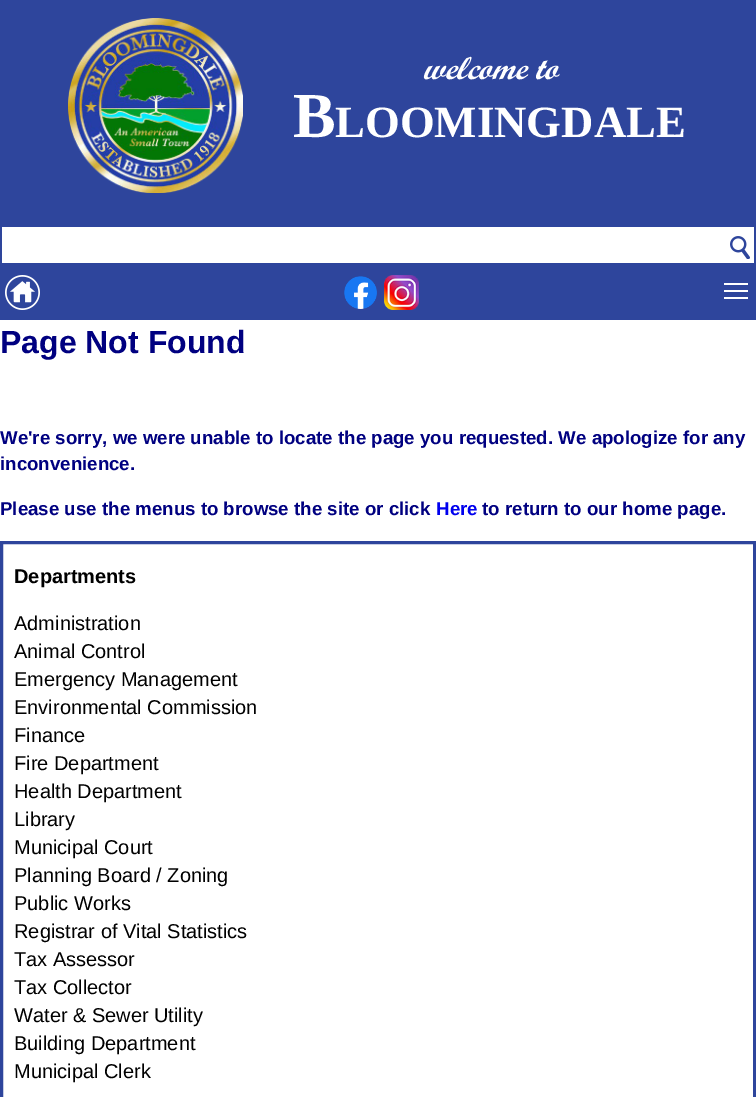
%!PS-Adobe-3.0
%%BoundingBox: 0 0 756 1097
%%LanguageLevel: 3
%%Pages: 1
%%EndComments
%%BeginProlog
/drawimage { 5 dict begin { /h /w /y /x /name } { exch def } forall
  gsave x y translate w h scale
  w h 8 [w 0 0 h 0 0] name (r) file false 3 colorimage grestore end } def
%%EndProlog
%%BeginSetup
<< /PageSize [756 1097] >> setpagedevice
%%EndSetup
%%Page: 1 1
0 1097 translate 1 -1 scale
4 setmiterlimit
1 setgray
0 0 756 1097 rectfill
0.18 0.271 0.612 setrgbcolor
0 0 756 320 rectfill
(images/1.raw) 68 18 175 175 drawimage
1 setgray
2 227 752 36 rectfill
(images/2.raw) 730 236 20 23 drawimage
(images/3.raw) 5 275 35 35 drawimage
(images/4.raw) 344 276 33 33 drawimage
(images/5.raw) 384 275 35 35 drawimage
724 283 24 2 rectfill
724 290 24 2 rectfill
724 297 24 2 rectfill
0.18 0.271 0.612 setrgbcolor
3 setlinewidth
1.5 542.5 753 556 rectstroke
/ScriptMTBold-BoldItalic [32 0 0 -32 0 0] selectfont
1 setgray
423 79 moveto (welcome to) show
/LiberationSerif-Bold [64 0 0 -64 0 0] selectfont
293 137 moveto (B) show
/LiberationSerif-Bold [44.75 0 0 -44.75 0 0] selectfont
335 137 moveto (LOOMINGDALE) show
/LiberationSans-Bold [32 0 0 -32 0 0] selectfont
0 0 0.502 setrgbcolor
0 353 moveto (Page Not Found) show
/LiberationSans-Bold [18.7 0 0 -18.7 0 0] selectfont
0 444 moveto (We're sorry, we were unable to locate the page you requested. We apologize for any) show
0 470 moveto (inconvenience.) show
0 515 moveto (Please use the menus to browse the site or click) show
0 0 0.933 setrgbcolor
436 515 moveto (Here) show
0 0 0.502 setrgbcolor
482 515 moveto (to return to our home page.) show
/LiberationSans-Bold [20 0 0 -20 0 0] selectfont
0 setgray
14 583 moveto (Departments) show
/LiberationSans-Regular [20 0 0 -20 0 0] selectfont
14 630 moveto (Administration) show
14 658 moveto (Animal Control) show
14 686 moveto (Emergency Management) show
14 714 moveto (Environmental Commission) show
14 742 moveto (Finance) show
14 770 moveto (Fire Department) show
14 798 moveto (Health Department) show
14 826 moveto (Library) show
14 854 moveto (Municipal Court) show
14 882 moveto (Planning Board / Zoning) show
14 910 moveto (Public Works) show
14 938 moveto (Registrar of Vital Statistics) show
14 966 moveto (Tax Assessor) show
14 994 moveto (Tax Collector) show
14 1022 moveto (Water & Sewer Utility) show
14 1050 moveto (Building Department) show
14 1078 moveto (Municipal Clerk) show
showpage
%%EOF
